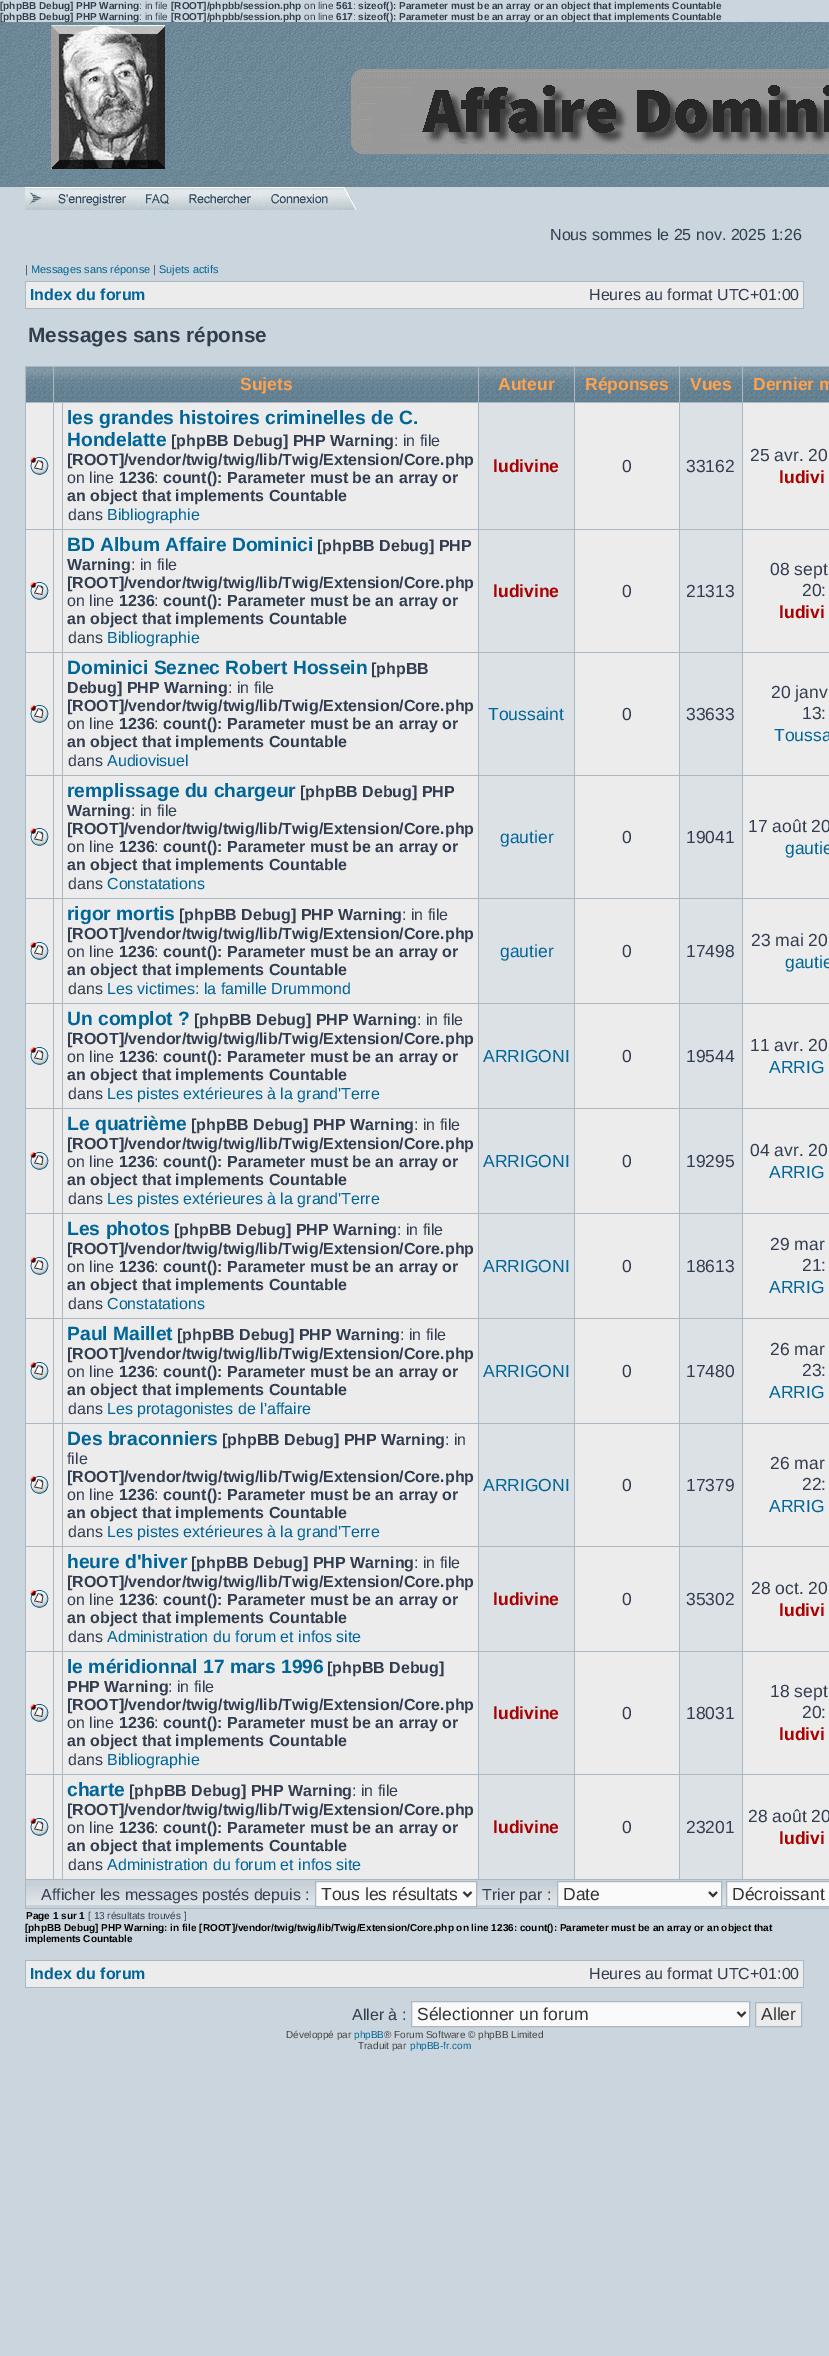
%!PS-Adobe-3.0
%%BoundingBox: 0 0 829 2356
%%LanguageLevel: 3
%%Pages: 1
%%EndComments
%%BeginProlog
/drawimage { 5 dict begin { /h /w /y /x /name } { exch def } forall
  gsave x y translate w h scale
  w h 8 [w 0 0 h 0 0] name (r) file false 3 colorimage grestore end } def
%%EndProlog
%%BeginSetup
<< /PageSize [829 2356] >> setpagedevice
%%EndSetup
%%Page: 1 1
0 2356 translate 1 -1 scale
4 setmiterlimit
0.792 0.835 0.867 setrgbcolor
0 0 829 2356 rectfill
(images/1.raw) 0 22 829 165 drawimage
(images/2.raw) 27 24 802 146 drawimage
(images/3.raw) 25 187 23 23 drawimage
(images/4.raw) 48 187 88 23 drawimage
(images/5.raw) 136 187 43 23 drawimage
(images/6.raw) 179 187 82 23 drawimage
(images/7.raw) 261 187 77 23 drawimage
(images/8.raw) 338 187 19 23 drawimage
0.663 0.722 0.761 setrgbcolor
25 281 779 28 rectfill
0.925 setgray
26 282 777 26 rectfill
0.663 0.722 0.761 setrgbcolor
25 366 804 1543 rectfill
(images/9.raw) 26 367 27 35 drawimage
(images/10.raw) 54 367 424 35 drawimage
(images/11.raw) 479 367 95 35 drawimage
(images/12.raw) 575 367 104 35 drawimage
(images/13.raw) 680 367 62 35 drawimage
(images/14.raw) 743 367 86 35 drawimage
0.925 setgray
26 403 27 126 rectfill
(images/15.raw) 30 457 19 18 drawimage
54 403 8 126 rectfill
63 403 415 126 rectfill
0.863 0.882 0.898 setrgbcolor
479 403 95 126 rectfill
0.925 setgray
575 403 104 126 rectfill
0.863 0.882 0.898 setrgbcolor
680 403 62 126 rectfill
0.925 setgray
743 403 86 126 rectfill
26 530 27 122 rectfill
(images/15.raw) 30 582 19 18 drawimage
54 530 8 122 rectfill
63 530 415 122 rectfill
0.863 0.882 0.898 setrgbcolor
479 530 95 122 rectfill
0.925 setgray
575 530 104 122 rectfill
0.863 0.882 0.898 setrgbcolor
680 530 62 122 rectfill
0.925 setgray
743 530 86 122 rectfill
26 653 27 122 rectfill
(images/15.raw) 30 705 19 18 drawimage
54 653 8 122 rectfill
63 653 415 122 rectfill
0.863 0.882 0.898 setrgbcolor
479 653 95 122 rectfill
0.925 setgray
575 653 104 122 rectfill
0.863 0.882 0.898 setrgbcolor
680 653 62 122 rectfill
0.925 setgray
743 653 86 122 rectfill
26 776 27 122 rectfill
(images/15.raw) 30 828 19 18 drawimage
54 776 8 122 rectfill
63 776 415 122 rectfill
0.863 0.882 0.898 setrgbcolor
479 776 95 122 rectfill
0.925 setgray
575 776 104 122 rectfill
0.863 0.882 0.898 setrgbcolor
680 776 62 122 rectfill
0.925 setgray
743 776 86 122 rectfill
26 899 27 104 rectfill
(images/15.raw) 30 942 19 18 drawimage
54 899 8 104 rectfill
63 899 415 104 rectfill
0.863 0.882 0.898 setrgbcolor
479 899 95 104 rectfill
0.925 setgray
575 899 104 104 rectfill
0.863 0.882 0.898 setrgbcolor
680 899 62 104 rectfill
0.925 setgray
743 899 86 104 rectfill
26 1004 27 104 rectfill
(images/15.raw) 30 1047 19 18 drawimage
54 1004 8 104 rectfill
63 1004 415 104 rectfill
0.863 0.882 0.898 setrgbcolor
479 1004 95 104 rectfill
0.925 setgray
575 1004 104 104 rectfill
0.863 0.882 0.898 setrgbcolor
680 1004 62 104 rectfill
0.925 setgray
743 1004 86 104 rectfill
26 1109 27 104 rectfill
(images/15.raw) 30 1152 19 18 drawimage
54 1109 8 104 rectfill
63 1109 415 104 rectfill
0.863 0.882 0.898 setrgbcolor
479 1109 95 104 rectfill
0.925 setgray
575 1109 104 104 rectfill
0.863 0.882 0.898 setrgbcolor
680 1109 62 104 rectfill
0.925 setgray
743 1109 86 104 rectfill
26 1214 27 104 rectfill
(images/15.raw) 30 1257 19 18 drawimage
54 1214 8 104 rectfill
63 1214 415 104 rectfill
0.863 0.882 0.898 setrgbcolor
479 1214 95 104 rectfill
0.925 setgray
575 1214 104 104 rectfill
0.863 0.882 0.898 setrgbcolor
680 1214 62 104 rectfill
0.925 setgray
743 1214 86 104 rectfill
26 1319 27 104 rectfill
(images/15.raw) 30 1362 19 18 drawimage
54 1319 8 104 rectfill
63 1319 415 104 rectfill
0.863 0.882 0.898 setrgbcolor
479 1319 95 104 rectfill
0.925 setgray
575 1319 104 104 rectfill
0.863 0.882 0.898 setrgbcolor
680 1319 62 104 rectfill
0.925 setgray
743 1319 86 104 rectfill
26 1424 27 122 rectfill
(images/15.raw) 30 1476 19 18 drawimage
54 1424 8 122 rectfill
63 1424 415 122 rectfill
0.863 0.882 0.898 setrgbcolor
479 1424 95 122 rectfill
0.925 setgray
575 1424 104 122 rectfill
0.863 0.882 0.898 setrgbcolor
680 1424 62 122 rectfill
0.925 setgray
743 1424 86 122 rectfill
26 1547 27 104 rectfill
(images/15.raw) 30 1590 19 18 drawimage
54 1547 8 104 rectfill
63 1547 415 104 rectfill
0.863 0.882 0.898 setrgbcolor
479 1547 95 104 rectfill
0.925 setgray
575 1547 104 104 rectfill
0.863 0.882 0.898 setrgbcolor
680 1547 62 104 rectfill
0.925 setgray
743 1547 86 104 rectfill
26 1652 27 122 rectfill
(images/15.raw) 30 1704 19 18 drawimage
54 1652 8 122 rectfill
63 1652 415 122 rectfill
0.863 0.882 0.898 setrgbcolor
479 1652 95 122 rectfill
0.925 setgray
575 1652 104 122 rectfill
0.863 0.882 0.898 setrgbcolor
680 1652 62 122 rectfill
0.925 setgray
743 1652 86 122 rectfill
26 1775 27 104 rectfill
(images/15.raw) 30 1818 19 18 drawimage
54 1775 8 104 rectfill
63 1775 415 104 rectfill
0.863 0.882 0.898 setrgbcolor
479 1775 95 104 rectfill
0.925 setgray
575 1775 104 104 rectfill
0.863 0.882 0.898 setrgbcolor
680 1775 62 104 rectfill
0.925 setgray
743 1775 86 104 rectfill
0.78 0.816 0.843 setrgbcolor
26 1880 803 28 rectfill
(images/16.raw) 26 1886 700 19 drawimage
0.98 setgray
newpath 315.5 1881.5 moveto 476.5 1881.5 lineto 476.5 1906.5 lineto 315.5 1906.5 lineto closepath gsave fill grestore
0.663 0.722 0.761 setrgbcolor
stroke
0.2 setgray
2 setlinewidth
newpath 463.5 1892 moveto 467.5 1896 lineto 471.5 1892 lineto stroke
0.98 setgray
newpath 557.5 1881.5 moveto 721.5 1881.5 lineto 721.5 1906.5 lineto 557.5 1906.5 lineto closepath gsave fill grestore
0.663 0.722 0.761 setrgbcolor
1 setlinewidth
stroke
0.2 setgray
2 setlinewidth
newpath 709 1892 moveto 713 1896 lineto 717 1892 lineto stroke
0.98 setgray
newpath 726.5 1881.5 moveto 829.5 1881.5 lineto 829.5 1906.5 lineto 726.5 1906.5 lineto closepath gsave fill grestore
0.663 0.722 0.761 setrgbcolor
1 setlinewidth
stroke
25 1960 779 28 rectfill
0.925 setgray
26 1961 777 26 rectfill
0.98 setgray
newpath 411.5 2001.5 moveto 749.5 2001.5 lineto 749.5 2026.5 lineto 411.5 2026.5 lineto closepath gsave fill grestore
0.663 0.722 0.761 setrgbcolor
stroke
0.2 setgray
2 setlinewidth
newpath 737.5 2012 moveto 741.5 2016 lineto 745.5 2012 lineto stroke
0.925 setgray
newpath 755.5 2002.5 moveto 801.5 2002.5 lineto 801.5 2026.5 lineto 755.5 2026.5 lineto closepath gsave fill grestore
0.663 0.722 0.761 setrgbcolor
1 setlinewidth
stroke
/LiberationSans-Bold [10 0 0 -10 0 0] selectfont
0.196 0.239 0.31 setrgbcolor
0 9 moveto ([phpBB Debug] PHP Warning) show
/LiberationSans-Regular [10 0 0 -10 0 0] selectfont
139 9 moveto (: in file) show
/LiberationSans-Bold [10 0 0 -10 0 0] selectfont
171 9 moveto ([ROOT]/phpbb/session.php) show
/LiberationSans-Regular [10 0 0 -10 0 0] selectfont
304 9 moveto (on line) show
/LiberationSans-Bold [10 0 0 -10 0 0] selectfont
336 9 moveto (561) show
/LiberationSans-Regular [10 0 0 -10 0 0] selectfont
353 9 moveto (:) show
/LiberationSans-Bold [10 0 0 -10 0 0] selectfont
358 9 moveto (sizeof\(\): Parameter must be an array or an object that implements Countable) show
0 20 moveto ([phpBB Debug] PHP Warning) show
/LiberationSans-Regular [10 0 0 -10 0 0] selectfont
139 20 moveto (: in file) show
/LiberationSans-Bold [10 0 0 -10 0 0] selectfont
171 20 moveto ([ROOT]/phpbb/session.php) show
/LiberationSans-Regular [10 0 0 -10 0 0] selectfont
304 20 moveto (on line) show
/LiberationSans-Bold [10 0 0 -10 0 0] selectfont
336 20 moveto (617) show
/LiberationSans-Regular [10 0 0 -10 0 0] selectfont
353 20 moveto (:) show
/LiberationSans-Bold [10 0 0 -10 0 0] selectfont
358 20 moveto (sizeof\(\): Parameter must be an array or an object that implements Countable) show
/LiberationSans-Regular [16 0 0 -16 0 0] selectfont
550 240 moveto (Nous sommes le 25 nov. 2025 1:26) show
/LiberationSans-Regular [11 0 0 -11 0 0] selectfont
25 273 moveto (|) show
0 0.396 0.592 setrgbcolor
31 273 moveto (Messages sans réponse) show
0.196 0.239 0.31 setrgbcolor
153 273 moveto (|) show
0 0.396 0.592 setrgbcolor
159 273 moveto (Sujets actifs) show
/LiberationSans-Bold [16 0 0 -16 0 0] selectfont
30 300 moveto (Index du forum) show
/LiberationSans-Regular [16 0 0 -16 0 0] selectfont
0.196 0.239 0.31 setrgbcolor
589 300 moveto (Heures au format UTC+01:00) show
/LiberationSans-Bold [20.75 0 0 -20.75 0 0] selectfont
28 342 moveto (Messages sans réponse) show
/LiberationSans-Bold [17.5 0 0 -17.5 0 0] selectfont
1 0.639 0.31 setrgbcolor
240 390 moveto (Sujets) show
498 390 moveto (Auteur) show
585 390 moveto (Réponses) show
690 390 moveto (Vues) show
753 390 moveto (Dernier m) show
/LiberationSans-Bold [19.25 0 0 -19.25 0 0] selectfont
0 0.396 0.592 setrgbcolor
67 424 moveto (les grandes histoires criminelles de C.) show
67 446 moveto (Hondelatte) show
/LiberationSans-Bold [16 0 0 -16 0 0] selectfont
0.196 0.239 0.31 setrgbcolor
171 446 moveto ([phpBB Debug] PHP Warning) show
/LiberationSans-Regular [16 0 0 -16 0 0] selectfont
394 446 moveto (: in file) show
/LiberationSans-Bold [16 0 0 -16 0 0] selectfont
67 465 moveto ([ROOT]/vendor/twig/twig/lib/Twig/Extension/Core.php) show
/LiberationSans-Regular [16 0 0 -16 0 0] selectfont
67 483 moveto (on line) show
/LiberationSans-Bold [16 0 0 -16 0 0] selectfont
119 483 moveto (1236) show
/LiberationSans-Regular [16 0 0 -16 0 0] selectfont
154 483 moveto (:) show
/LiberationSans-Bold [16 0 0 -16 0 0] selectfont
163 483 moveto (count\(\): Parameter must be an array or) show
67 501 moveto (an object that implements Countable) show
/LiberationSans-Regular [16 0 0 -16 0 0] selectfont
68 520 moveto (dans) show
0 0.396 0.592 setrgbcolor
107 520 moveto (Bibliographie) show
/LiberationSans-Bold [17.5 0 0 -17.5 0 0] selectfont
0.667 0 0 setrgbcolor
493 472 moveto (ludivine) show
/LiberationSans-Regular [17.5 0 0 -17.5 0 0] selectfont
0.196 0.239 0.31 setrgbcolor
622 472 moveto (0) show
686 472 moveto (33162) show
750 461 moveto (25 avr. 20) show
/LiberationSans-Bold [17.5 0 0 -17.5 0 0] selectfont
0.667 0 0 setrgbcolor
779 483 moveto (ludivi) show
/LiberationSans-Bold [19.25 0 0 -19.25 0 0] selectfont
0 0.396 0.592 setrgbcolor
67 551 moveto (BD Album Affaire Dominici) show
/LiberationSans-Bold [16 0 0 -16 0 0] selectfont
0.196 0.239 0.31 setrgbcolor
317 551 moveto ([phpBB Debug] PHP) show
67 570 moveto (Warning) show
/LiberationSans-Regular [16 0 0 -16 0 0] selectfont
131 570 moveto (: in file) show
/LiberationSans-Bold [16 0 0 -16 0 0] selectfont
67 588 moveto ([ROOT]/vendor/twig/twig/lib/Twig/Extension/Core.php) show
/LiberationSans-Regular [16 0 0 -16 0 0] selectfont
67 606 moveto (on line) show
/LiberationSans-Bold [16 0 0 -16 0 0] selectfont
119 606 moveto (1236) show
/LiberationSans-Regular [16 0 0 -16 0 0] selectfont
154 606 moveto (:) show
/LiberationSans-Bold [16 0 0 -16 0 0] selectfont
163 606 moveto (count\(\): Parameter must be an array or) show
67 624 moveto (an object that implements Countable) show
/LiberationSans-Regular [16 0 0 -16 0 0] selectfont
68 643 moveto (dans) show
0 0.396 0.592 setrgbcolor
107 643 moveto (Bibliographie) show
/LiberationSans-Bold [17.5 0 0 -17.5 0 0] selectfont
0.667 0 0 setrgbcolor
493 597 moveto (ludivine) show
/LiberationSans-Regular [17.5 0 0 -17.5 0 0] selectfont
0.196 0.239 0.31 setrgbcolor
622 597 moveto (0) show
686 597 moveto (21313) show
770 575 moveto (08 sept) show
802 596 moveto (20:) show
/LiberationSans-Bold [17.5 0 0 -17.5 0 0] selectfont
0.667 0 0 setrgbcolor
779 618 moveto (ludivi) show
/LiberationSans-Bold [19.25 0 0 -19.25 0 0] selectfont
0 0.396 0.592 setrgbcolor
67 674 moveto (Dominici Seznec Robert Hossein) show
/LiberationSans-Bold [16 0 0 -16 0 0] selectfont
0.196 0.239 0.31 setrgbcolor
371 674 moveto ([phpBB) show
67 693 moveto (Debug] PHP Warning) show
/LiberationSans-Regular [16 0 0 -16 0 0] selectfont
228 693 moveto (: in file) show
/LiberationSans-Bold [16 0 0 -16 0 0] selectfont
67 711 moveto ([ROOT]/vendor/twig/twig/lib/Twig/Extension/Core.php) show
/LiberationSans-Regular [16 0 0 -16 0 0] selectfont
67 729 moveto (on line) show
/LiberationSans-Bold [16 0 0 -16 0 0] selectfont
119 729 moveto (1236) show
/LiberationSans-Regular [16 0 0 -16 0 0] selectfont
154 729 moveto (:) show
/LiberationSans-Bold [16 0 0 -16 0 0] selectfont
163 729 moveto (count\(\): Parameter must be an array or) show
67 747 moveto (an object that implements Countable) show
/LiberationSans-Regular [16 0 0 -16 0 0] selectfont
68 766 moveto (dans) show
0 0.396 0.592 setrgbcolor
107 766 moveto (Audiovisuel) show
/LiberationSans-Regular [17.5 0 0 -17.5 0 0] selectfont
488 720 moveto (Toussaint) show
0.196 0.239 0.31 setrgbcolor
622 720 moveto (0) show
686 720 moveto (33633) show
771 698 moveto (20 janv) show
802 719 moveto (13:) show
0 0.396 0.592 setrgbcolor
774 741 moveto (Toussa) show
/LiberationSans-Bold [19.25 0 0 -19.25 0 0] selectfont
67 797 moveto (remplissage du chargeur) show
/LiberationSans-Bold [16 0 0 -16 0 0] selectfont
0.196 0.239 0.31 setrgbcolor
300 797 moveto ([phpBB Debug] PHP) show
67 816 moveto (Warning) show
/LiberationSans-Regular [16 0 0 -16 0 0] selectfont
131 816 moveto (: in file) show
/LiberationSans-Bold [16 0 0 -16 0 0] selectfont
67 834 moveto ([ROOT]/vendor/twig/twig/lib/Twig/Extension/Core.php) show
/LiberationSans-Regular [16 0 0 -16 0 0] selectfont
67 852 moveto (on line) show
/LiberationSans-Bold [16 0 0 -16 0 0] selectfont
119 852 moveto (1236) show
/LiberationSans-Regular [16 0 0 -16 0 0] selectfont
154 852 moveto (:) show
/LiberationSans-Bold [16 0 0 -16 0 0] selectfont
163 852 moveto (count\(\): Parameter must be an array or) show
67 870 moveto (an object that implements Countable) show
/LiberationSans-Regular [16 0 0 -16 0 0] selectfont
68 889 moveto (dans) show
0 0.396 0.592 setrgbcolor
107 889 moveto (Constatations) show
/LiberationSans-Regular [17.5 0 0 -17.5 0 0] selectfont
500 843 moveto (gautier) show
0.196 0.239 0.31 setrgbcolor
622 843 moveto (0) show
686 843 moveto (19041) show
748 832 moveto (17 août 20) show
0 0.396 0.592 setrgbcolor
785 854 moveto (gautie) show
/LiberationSans-Bold [19.25 0 0 -19.25 0 0] selectfont
67 920 moveto (rigor mortis) show
/LiberationSans-Bold [16 0 0 -16 0 0] selectfont
0.196 0.239 0.31 setrgbcolor
179 920 moveto ([phpBB Debug] PHP Warning) show
/LiberationSans-Regular [16 0 0 -16 0 0] selectfont
402 920 moveto (: in file) show
/LiberationSans-Bold [16 0 0 -16 0 0] selectfont
67 939 moveto ([ROOT]/vendor/twig/twig/lib/Twig/Extension/Core.php) show
/LiberationSans-Regular [16 0 0 -16 0 0] selectfont
67 957 moveto (on line) show
/LiberationSans-Bold [16 0 0 -16 0 0] selectfont
119 957 moveto (1236) show
/LiberationSans-Regular [16 0 0 -16 0 0] selectfont
154 957 moveto (:) show
/LiberationSans-Bold [16 0 0 -16 0 0] selectfont
163 957 moveto (count\(\): Parameter must be an array or) show
67 975 moveto (an object that implements Countable) show
/LiberationSans-Regular [16 0 0 -16 0 0] selectfont
68 994 moveto (dans) show
0 0.396 0.592 setrgbcolor
107 994 moveto (Les victimes: la famille Drummond) show
/LiberationSans-Regular [17.5 0 0 -17.5 0 0] selectfont
500 957 moveto (gautier) show
0.196 0.239 0.31 setrgbcolor
622 957 moveto (0) show
686 957 moveto (17498) show
751 946 moveto (23 mai 20) show
0 0.396 0.592 setrgbcolor
785 968 moveto (gautie) show
/LiberationSans-Bold [19.25 0 0 -19.25 0 0] selectfont
67 1025 moveto (Un complot ?) show
/LiberationSans-Bold [16 0 0 -16 0 0] selectfont
0.196 0.239 0.31 setrgbcolor
194 1025 moveto ([phpBB Debug] PHP Warning) show
/LiberationSans-Regular [16 0 0 -16 0 0] selectfont
417 1025 moveto (: in file) show
/LiberationSans-Bold [16 0 0 -16 0 0] selectfont
67 1044 moveto ([ROOT]/vendor/twig/twig/lib/Twig/Extension/Core.php) show
/LiberationSans-Regular [16 0 0 -16 0 0] selectfont
67 1062 moveto (on line) show
/LiberationSans-Bold [16 0 0 -16 0 0] selectfont
119 1062 moveto (1236) show
/LiberationSans-Regular [16 0 0 -16 0 0] selectfont
154 1062 moveto (:) show
/LiberationSans-Bold [16 0 0 -16 0 0] selectfont
163 1062 moveto (count\(\): Parameter must be an array or) show
67 1080 moveto (an object that implements Countable) show
/LiberationSans-Regular [16 0 0 -16 0 0] selectfont
68 1099 moveto (dans) show
0 0.396 0.592 setrgbcolor
107 1099 moveto (Les pistes extérieures à la grand'Terre) show
/LiberationSans-Regular [17.5 0 0 -17.5 0 0] selectfont
483 1062 moveto (ARRIGONI) show
0.196 0.239 0.31 setrgbcolor
622 1062 moveto (0) show
686 1062 moveto (19544) show
750 1051 moveto (11 avr. 20) show
0 0.396 0.592 setrgbcolor
769 1073 moveto (ARRIG) show
/LiberationSans-Bold [19.25 0 0 -19.25 0 0] selectfont
67 1130 moveto (Le quatrième) show
/LiberationSans-Bold [16 0 0 -16 0 0] selectfont
0.196 0.239 0.31 setrgbcolor
191 1130 moveto ([phpBB Debug] PHP Warning) show
/LiberationSans-Regular [16 0 0 -16 0 0] selectfont
414 1130 moveto (: in file) show
/LiberationSans-Bold [16 0 0 -16 0 0] selectfont
67 1149 moveto ([ROOT]/vendor/twig/twig/lib/Twig/Extension/Core.php) show
/LiberationSans-Regular [16 0 0 -16 0 0] selectfont
67 1167 moveto (on line) show
/LiberationSans-Bold [16 0 0 -16 0 0] selectfont
119 1167 moveto (1236) show
/LiberationSans-Regular [16 0 0 -16 0 0] selectfont
154 1167 moveto (:) show
/LiberationSans-Bold [16 0 0 -16 0 0] selectfont
163 1167 moveto (count\(\): Parameter must be an array or) show
67 1185 moveto (an object that implements Countable) show
/LiberationSans-Regular [16 0 0 -16 0 0] selectfont
68 1204 moveto (dans) show
0 0.396 0.592 setrgbcolor
107 1204 moveto (Les pistes extérieures à la grand'Terre) show
/LiberationSans-Regular [17.5 0 0 -17.5 0 0] selectfont
483 1167 moveto (ARRIGONI) show
0.196 0.239 0.31 setrgbcolor
622 1167 moveto (0) show
686 1167 moveto (19295) show
750 1156 moveto (04 avr. 20) show
0 0.396 0.592 setrgbcolor
769 1178 moveto (ARRIG) show
/LiberationSans-Bold [19.25 0 0 -19.25 0 0] selectfont
67 1235 moveto (Les photos) show
/LiberationSans-Bold [16 0 0 -16 0 0] selectfont
0.196 0.239 0.31 setrgbcolor
174 1235 moveto ([phpBB Debug] PHP Warning) show
/LiberationSans-Regular [16 0 0 -16 0 0] selectfont
397 1235 moveto (: in file) show
/LiberationSans-Bold [16 0 0 -16 0 0] selectfont
67 1254 moveto ([ROOT]/vendor/twig/twig/lib/Twig/Extension/Core.php) show
/LiberationSans-Regular [16 0 0 -16 0 0] selectfont
67 1272 moveto (on line) show
/LiberationSans-Bold [16 0 0 -16 0 0] selectfont
119 1272 moveto (1236) show
/LiberationSans-Regular [16 0 0 -16 0 0] selectfont
154 1272 moveto (:) show
/LiberationSans-Bold [16 0 0 -16 0 0] selectfont
163 1272 moveto (count\(\): Parameter must be an array or) show
67 1290 moveto (an object that implements Countable) show
/LiberationSans-Regular [16 0 0 -16 0 0] selectfont
68 1309 moveto (dans) show
0 0.396 0.592 setrgbcolor
107 1309 moveto (Constatations) show
/LiberationSans-Regular [17.5 0 0 -17.5 0 0] selectfont
483 1272 moveto (ARRIGONI) show
0.196 0.239 0.31 setrgbcolor
622 1272 moveto (0) show
686 1272 moveto (18613) show
770 1250 moveto (29 mar) show
802 1271 moveto (21:) show
0 0.396 0.592 setrgbcolor
769 1293 moveto (ARRIG) show
/LiberationSans-Bold [19.25 0 0 -19.25 0 0] selectfont
67 1340 moveto (Paul Maillet) show
/LiberationSans-Bold [16 0 0 -16 0 0] selectfont
0.196 0.239 0.31 setrgbcolor
177 1340 moveto ([phpBB Debug] PHP Warning) show
/LiberationSans-Regular [16 0 0 -16 0 0] selectfont
400 1340 moveto (: in file) show
/LiberationSans-Bold [16 0 0 -16 0 0] selectfont
67 1359 moveto ([ROOT]/vendor/twig/twig/lib/Twig/Extension/Core.php) show
/LiberationSans-Regular [16 0 0 -16 0 0] selectfont
67 1377 moveto (on line) show
/LiberationSans-Bold [16 0 0 -16 0 0] selectfont
119 1377 moveto (1236) show
/LiberationSans-Regular [16 0 0 -16 0 0] selectfont
154 1377 moveto (:) show
/LiberationSans-Bold [16 0 0 -16 0 0] selectfont
163 1377 moveto (count\(\): Parameter must be an array or) show
67 1395 moveto (an object that implements Countable) show
/LiberationSans-Regular [16 0 0 -16 0 0] selectfont
68 1414 moveto (dans) show
0 0.396 0.592 setrgbcolor
107 1414 moveto (Les protagonistes de l'affaire) show
/LiberationSans-Regular [17.5 0 0 -17.5 0 0] selectfont
483 1377 moveto (ARRIGONI) show
0.196 0.239 0.31 setrgbcolor
622 1377 moveto (0) show
686 1377 moveto (17480) show
770 1355 moveto (26 mar) show
802 1376 moveto (23:) show
0 0.396 0.592 setrgbcolor
769 1398 moveto (ARRIG) show
/LiberationSans-Bold [19.25 0 0 -19.25 0 0] selectfont
67 1445 moveto (Des braconniers) show
/LiberationSans-Bold [16 0 0 -16 0 0] selectfont
0.196 0.239 0.31 setrgbcolor
222 1445 moveto ([phpBB Debug] PHP Warning) show
/LiberationSans-Regular [16 0 0 -16 0 0] selectfont
445 1445 moveto (: in) show
67 1464 moveto (file) show
/LiberationSans-Bold [16 0 0 -16 0 0] selectfont
67 1482 moveto ([ROOT]/vendor/twig/twig/lib/Twig/Extension/Core.php) show
/LiberationSans-Regular [16 0 0 -16 0 0] selectfont
67 1500 moveto (on line) show
/LiberationSans-Bold [16 0 0 -16 0 0] selectfont
119 1500 moveto (1236) show
/LiberationSans-Regular [16 0 0 -16 0 0] selectfont
154 1500 moveto (:) show
/LiberationSans-Bold [16 0 0 -16 0 0] selectfont
163 1500 moveto (count\(\): Parameter must be an array or) show
67 1518 moveto (an object that implements Countable) show
/LiberationSans-Regular [16 0 0 -16 0 0] selectfont
68 1537 moveto (dans) show
0 0.396 0.592 setrgbcolor
107 1537 moveto (Les pistes extérieures à la grand'Terre) show
/LiberationSans-Regular [17.5 0 0 -17.5 0 0] selectfont
483 1491 moveto (ARRIGONI) show
0.196 0.239 0.31 setrgbcolor
622 1491 moveto (0) show
686 1491 moveto (17379) show
770 1469 moveto (26 mar) show
802 1490 moveto (22:) show
0 0.396 0.592 setrgbcolor
769 1512 moveto (ARRIG) show
/LiberationSans-Bold [19.25 0 0 -19.25 0 0] selectfont
67 1568 moveto (heure d'hiver) show
/LiberationSans-Bold [16 0 0 -16 0 0] selectfont
0.196 0.239 0.31 setrgbcolor
191 1568 moveto ([phpBB Debug] PHP Warning) show
/LiberationSans-Regular [16 0 0 -16 0 0] selectfont
414 1568 moveto (: in file) show
/LiberationSans-Bold [16 0 0 -16 0 0] selectfont
67 1587 moveto ([ROOT]/vendor/twig/twig/lib/Twig/Extension/Core.php) show
/LiberationSans-Regular [16 0 0 -16 0 0] selectfont
67 1605 moveto (on line) show
/LiberationSans-Bold [16 0 0 -16 0 0] selectfont
119 1605 moveto (1236) show
/LiberationSans-Regular [16 0 0 -16 0 0] selectfont
154 1605 moveto (:) show
/LiberationSans-Bold [16 0 0 -16 0 0] selectfont
163 1605 moveto (count\(\): Parameter must be an array or) show
67 1623 moveto (an object that implements Countable) show
/LiberationSans-Regular [16 0 0 -16 0 0] selectfont
68 1642 moveto (dans) show
0 0.396 0.592 setrgbcolor
107 1642 moveto (Administration du forum et infos site) show
/LiberationSans-Bold [17.5 0 0 -17.5 0 0] selectfont
0.667 0 0 setrgbcolor
493 1605 moveto (ludivine) show
/LiberationSans-Regular [17.5 0 0 -17.5 0 0] selectfont
0.196 0.239 0.31 setrgbcolor
622 1605 moveto (0) show
686 1605 moveto (35302) show
751 1594 moveto (28 oct. 20) show
/LiberationSans-Bold [17.5 0 0 -17.5 0 0] selectfont
0.667 0 0 setrgbcolor
779 1616 moveto (ludivi) show
/LiberationSans-Bold [19.25 0 0 -19.25 0 0] selectfont
0 0.396 0.592 setrgbcolor
67 1673 moveto (le méridionnal 17 mars 1996) show
/LiberationSans-Bold [16 0 0 -16 0 0] selectfont
0.196 0.239 0.31 setrgbcolor
327 1673 moveto ([phpBB Debug]) show
67 1692 moveto (PHP Warning) show
/LiberationSans-Regular [16 0 0 -16 0 0] selectfont
168 1692 moveto (: in file) show
/LiberationSans-Bold [16 0 0 -16 0 0] selectfont
67 1710 moveto ([ROOT]/vendor/twig/twig/lib/Twig/Extension/Core.php) show
/LiberationSans-Regular [16 0 0 -16 0 0] selectfont
67 1728 moveto (on line) show
/LiberationSans-Bold [16 0 0 -16 0 0] selectfont
119 1728 moveto (1236) show
/LiberationSans-Regular [16 0 0 -16 0 0] selectfont
154 1728 moveto (:) show
/LiberationSans-Bold [16 0 0 -16 0 0] selectfont
163 1728 moveto (count\(\): Parameter must be an array or) show
67 1746 moveto (an object that implements Countable) show
/LiberationSans-Regular [16 0 0 -16 0 0] selectfont
68 1765 moveto (dans) show
0 0.396 0.592 setrgbcolor
107 1765 moveto (Bibliographie) show
/LiberationSans-Bold [17.5 0 0 -17.5 0 0] selectfont
0.667 0 0 setrgbcolor
493 1719 moveto (ludivine) show
/LiberationSans-Regular [17.5 0 0 -17.5 0 0] selectfont
0.196 0.239 0.31 setrgbcolor
622 1719 moveto (0) show
686 1719 moveto (18031) show
770 1697 moveto (18 sept) show
802 1718 moveto (20:) show
/LiberationSans-Bold [17.5 0 0 -17.5 0 0] selectfont
0.667 0 0 setrgbcolor
779 1740 moveto (ludivi) show
/LiberationSans-Bold [19.25 0 0 -19.25 0 0] selectfont
0 0.396 0.592 setrgbcolor
67 1796 moveto (charte) show
/LiberationSans-Bold [16 0 0 -16 0 0] selectfont
0.196 0.239 0.31 setrgbcolor
129 1796 moveto ([phpBB Debug] PHP Warning) show
/LiberationSans-Regular [16 0 0 -16 0 0] selectfont
352 1796 moveto (: in file) show
/LiberationSans-Bold [16 0 0 -16 0 0] selectfont
67 1815 moveto ([ROOT]/vendor/twig/twig/lib/Twig/Extension/Core.php) show
/LiberationSans-Regular [16 0 0 -16 0 0] selectfont
67 1833 moveto (on line) show
/LiberationSans-Bold [16 0 0 -16 0 0] selectfont
119 1833 moveto (1236) show
/LiberationSans-Regular [16 0 0 -16 0 0] selectfont
154 1833 moveto (:) show
/LiberationSans-Bold [16 0 0 -16 0 0] selectfont
163 1833 moveto (count\(\): Parameter must be an array or) show
67 1851 moveto (an object that implements Countable) show
/LiberationSans-Regular [16 0 0 -16 0 0] selectfont
68 1870 moveto (dans) show
0 0.396 0.592 setrgbcolor
107 1870 moveto (Administration du forum et infos site) show
/LiberationSans-Bold [17.5 0 0 -17.5 0 0] selectfont
0.667 0 0 setrgbcolor
493 1833 moveto (ludivine) show
/LiberationSans-Regular [17.5 0 0 -17.5 0 0] selectfont
0.196 0.239 0.31 setrgbcolor
622 1833 moveto (0) show
686 1833 moveto (23201) show
748 1822 moveto (28 août 20) show
/LiberationSans-Bold [17.5 0 0 -17.5 0 0] selectfont
0.667 0 0 setrgbcolor
779 1844 moveto (ludivi) show
/LiberationSans-Regular [16 0 0 -16 0 0] selectfont
0.196 0.239 0.31 setrgbcolor
41 1900 moveto (Afficher les messages postés depuis :) show
/LiberationSans-Regular [17.5 0 0 -17.5 0 0] selectfont
0.2 setgray
321 1900 moveto (Tous les résultats) show
/LiberationSans-Regular [16 0 0 -16 0 0] selectfont
0.196 0.239 0.31 setrgbcolor
482 1900 moveto (Trier par :) show
/LiberationSans-Regular [17.5 0 0 -17.5 0 0] selectfont
0.2 setgray
563 1900 moveto (Date) show
732 1900 moveto (Décroissant) show
/LiberationSans-Bold [10 0 0 -10 0 0] selectfont
0 setgray
26 1919 moveto (Page 1 sur 1) show
/LiberationSans-Regular [10 0 0 -10 0 0] selectfont
0.196 0.239 0.31 setrgbcolor
88 1919 moveto ([ 13 résultats trouvés ]) show
/LiberationSans-Bold [10 0 0 -10 0 0] selectfont
0 setgray
25 1931 moveto ([phpBB Debug] PHP Warning: in file [ROOT]/vendor/twig/twig/lib/Twig/Extension/Core.php on line 1236: count\(\): Parameter must be an array or an object that) show
25 1942 moveto (implements Countable) show
/LiberationSans-Bold [16 0 0 -16 0 0] selectfont
0 0.396 0.592 setrgbcolor
30 1979 moveto (Index du forum) show
/LiberationSans-Regular [16 0 0 -16 0 0] selectfont
0.196 0.239 0.31 setrgbcolor
589 1979 moveto (Heures au format UTC+01:00) show
352 2020 moveto (Aller à :) show
/LiberationSans-Regular [17.5 0 0 -17.5 0 0] selectfont
0.2 setgray
417 2020 moveto (Sélectionner un forum) show
761 2020 moveto (Aller) show
/LiberationSans-Regular [10 0 0 -10 0 0] selectfont
0.267 setgray
286 2038 moveto (Développé par) show
0 0.396 0.592 setrgbcolor
354 2038 moveto (phpBB) show
0.267 setgray
384 2038 moveto (® Forum Software © phpBB Limited) show
358 2049 moveto (Traduit par) show
0 0.396 0.592 setrgbcolor
410 2049 moveto (phpBB-fr.com) show
showpage
%%EOF
